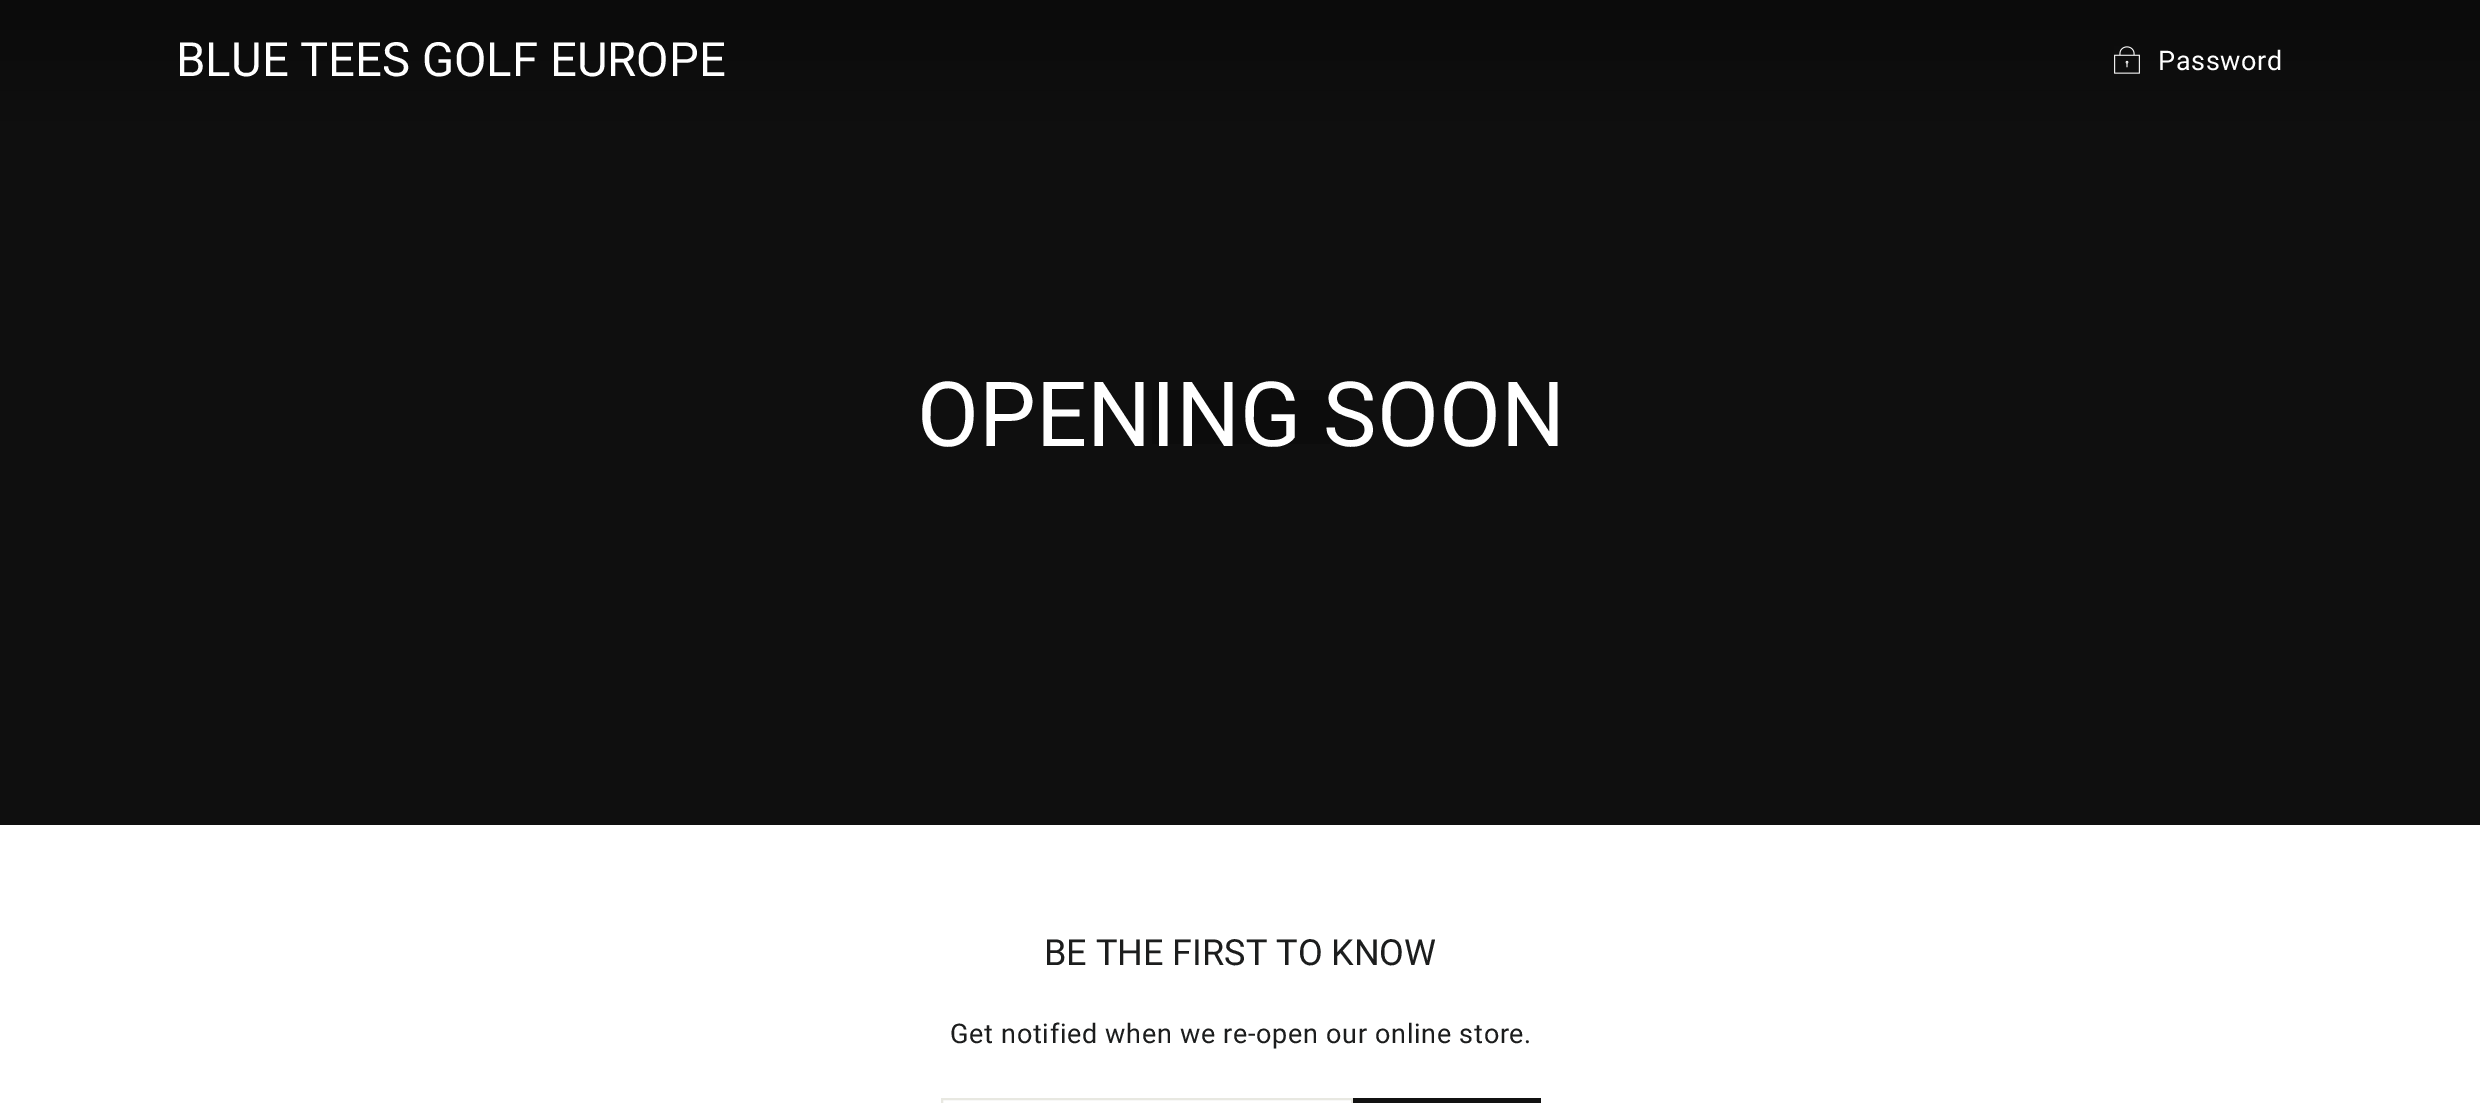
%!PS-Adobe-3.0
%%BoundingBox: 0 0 2480 1103
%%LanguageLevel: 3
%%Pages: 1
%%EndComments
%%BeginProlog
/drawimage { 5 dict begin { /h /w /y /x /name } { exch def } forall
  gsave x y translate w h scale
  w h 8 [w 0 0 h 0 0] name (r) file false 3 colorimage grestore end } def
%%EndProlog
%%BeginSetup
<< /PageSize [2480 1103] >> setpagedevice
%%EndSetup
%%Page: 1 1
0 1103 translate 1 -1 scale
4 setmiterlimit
1 setgray
0 0 2480 1103 rectfill
gsave newpath 0 0 moveto 2480 0 lineto 2480 122 lineto 0 122 lineto closepath clip newpath
<< /ShadingType 2 /ColorSpace /DeviceRGB /Coords [1241 0 1241 122] /Extend [true true] /Function << /FunctionType 2 /Domain [0 1] /C0 [0.043 0.043 0.043] /C1 [0.059 0.059 0.059] /N 1 >> >> shfill grestore
(images/1.raw) 2114 46 26 28 drawimage
0.059 setgray
0 122 2480 703 rectfill
gsave newpath 1152 390 moveto 1330 390 lineto 1330 444 lineto 1152 444 lineto closepath clip newpath 1241 417 translate 882 269 scale
<< /ShadingType 3 /ColorSpace /DeviceRGB /Coords [0 0 0 0 0 1] /Extend [true true] /Function << /FunctionType 3 /Domain [0 1] /Functions [<< /FunctionType 2 /Domain [0 1] /C0 [0.047 0.047 0.047] /C1 [0.059 0.059 0.059] /N 1 >> << /FunctionType 2 /Domain [0 1] /C0 [0.059 0.059 0.059] /C1 [0.059 0.059 0.059] /N 1 >>] /Bounds [0.6] /Encode [0 1 0 1] >> >> shfill grestore
0.91 0.91 0.882 setrgbcolor
2 setlinewidth
942 1099 410 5 rectstroke
0.067 setgray
1353 1098 188 5 rectfill
/Roboto-Regular [47.25 0 0 -47.25 0 0] selectfont
1 setgray
176 76 moveto (BLUE TEES GOLF EUROPE) show
/Roboto-Regular [27 0 0 -27 0 0] selectfont
2158 70 moveto 0.7 0 (Password) ashow
/Roboto-Regular [90 0 0 -90 0 0] selectfont
917 446 moveto (OPENING SOON) show
/Roboto-Regular [36 0 0 -36 0 0] selectfont
0.11 0.114 0.114 setrgbcolor
1044 965 moveto (BE THE FIRST TO KNOW) show
/Roboto-Regular [27 0 0 -27 0 0] selectfont
950 1043 moveto 0.7 0 (Get notified when we re-open our online store.) ashow
showpage
%%EOF
